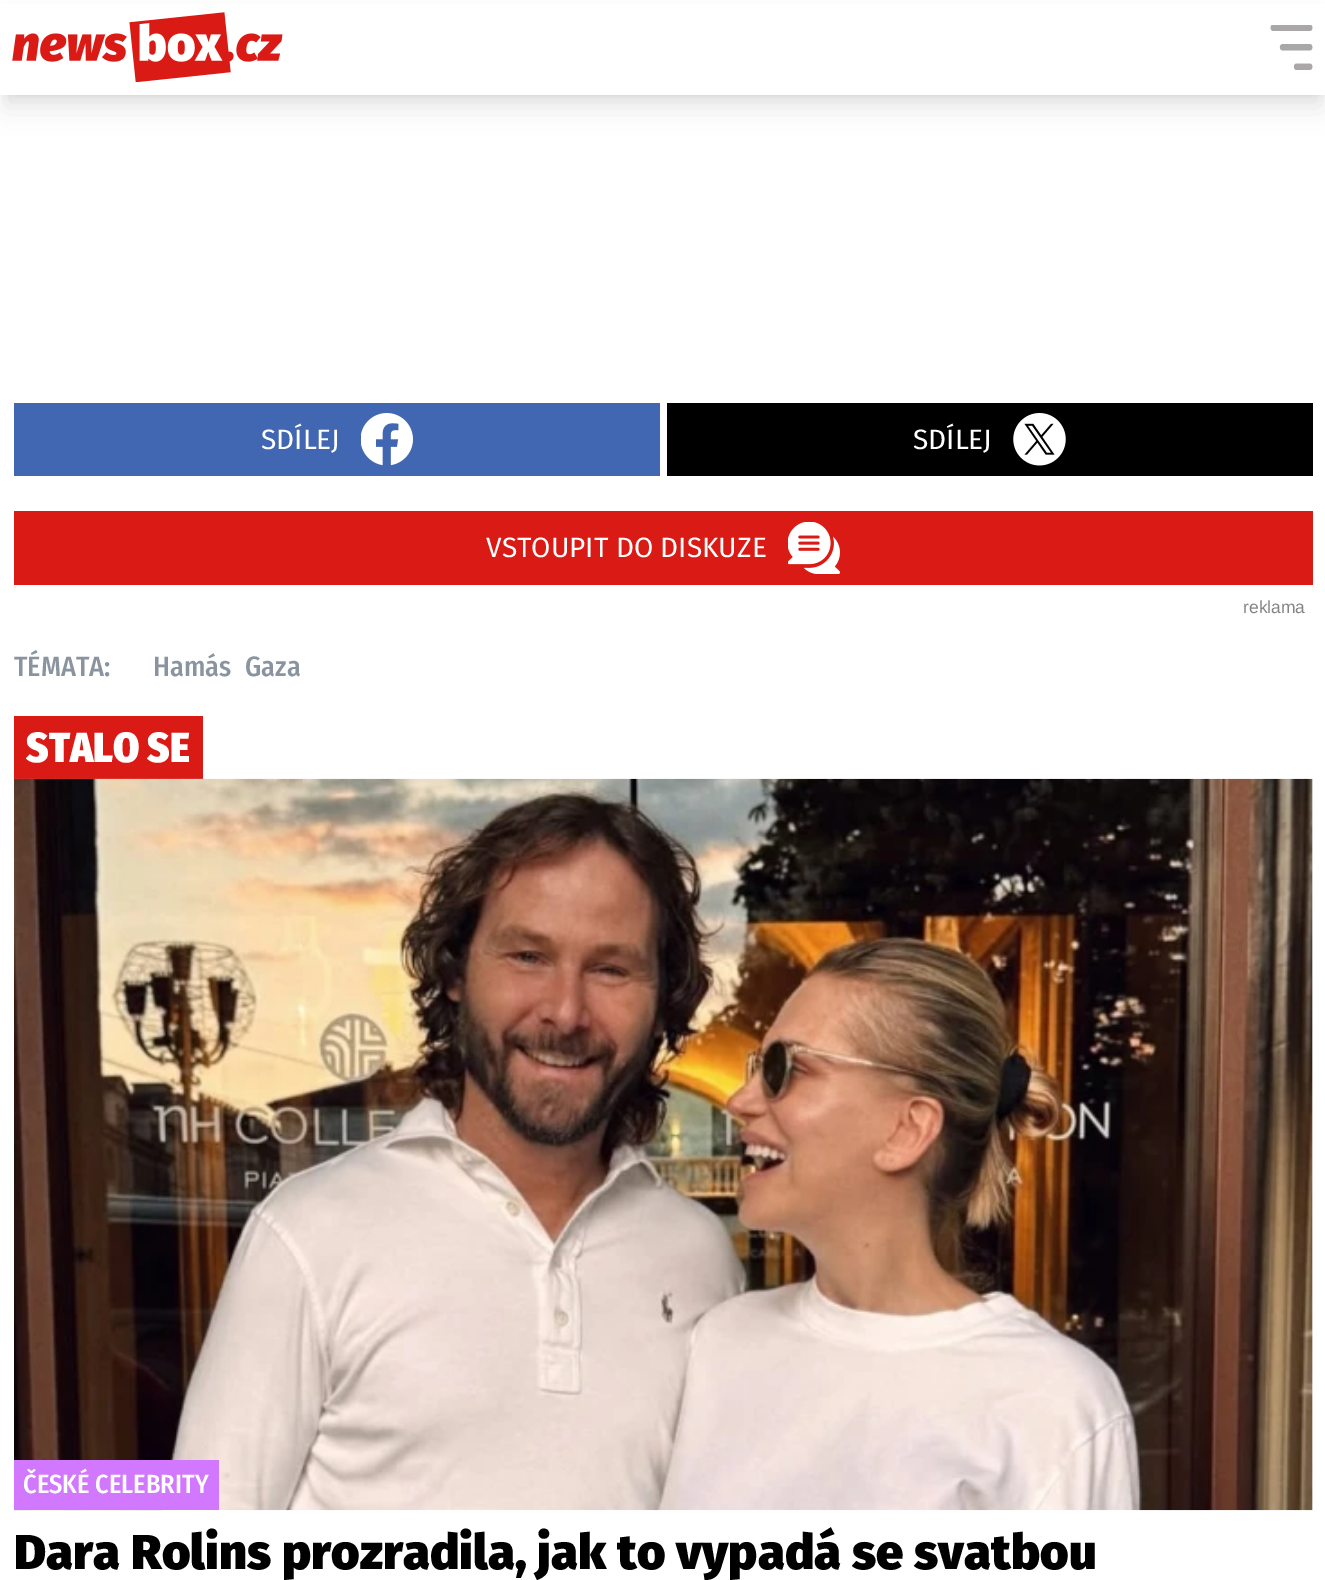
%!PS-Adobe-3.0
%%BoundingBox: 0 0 1325 1580
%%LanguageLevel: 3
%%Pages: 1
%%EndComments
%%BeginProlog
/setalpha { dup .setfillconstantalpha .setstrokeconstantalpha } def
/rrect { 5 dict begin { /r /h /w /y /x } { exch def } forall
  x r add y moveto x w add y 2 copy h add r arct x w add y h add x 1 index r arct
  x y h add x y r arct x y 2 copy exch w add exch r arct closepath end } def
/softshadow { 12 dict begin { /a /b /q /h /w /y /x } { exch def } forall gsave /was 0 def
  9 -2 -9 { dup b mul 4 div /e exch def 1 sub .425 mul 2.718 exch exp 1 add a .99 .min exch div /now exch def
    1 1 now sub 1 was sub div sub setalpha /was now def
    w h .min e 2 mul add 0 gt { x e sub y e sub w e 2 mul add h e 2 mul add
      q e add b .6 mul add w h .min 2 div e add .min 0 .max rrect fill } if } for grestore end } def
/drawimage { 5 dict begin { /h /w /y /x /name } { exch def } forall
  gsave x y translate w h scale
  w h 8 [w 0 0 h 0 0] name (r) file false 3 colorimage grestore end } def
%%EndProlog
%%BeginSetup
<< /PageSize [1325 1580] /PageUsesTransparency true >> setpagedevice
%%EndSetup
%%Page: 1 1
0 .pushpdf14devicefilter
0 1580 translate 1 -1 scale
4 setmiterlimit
1 setgray
0 0 1325 1580 rectfill
0 setgray
7 14 1313 81 0 5 0.1 softshadow
5 23 1316 84 0 13 0.1 softshadow
1 setgray
0 4 1325 91 rectfill
(images/1.raw) 12 12 271 70 drawimage
(images/2.raw) 1270 25 43 45 drawimage
0.259 0.404 0.698 setrgbcolor
14 403 646 73 rectfill
(images/3.raw) 361 413 52 53 drawimage
0 setgray
667 403 646 73 rectfill
(images/4.raw) 1013 413 53 53 drawimage
0.855 0.102 0.078 setrgbcolor
14 511 1299 74 rectfill
(images/5.raw) 788 522 52 52 drawimage
14 716 189 63 rectfill
0.941 setgray
1312 779 1 731 rectfill
(images/6.raw) 14 778 1299 732 drawimage
(images/7.raw) 14 778 1299 733 drawimage
0.824 0.471 1 setrgbcolor
14 1460 205 50 rectfill
/FiraSans-Regular [28 0 0 -28 0 0] selectfont
1 setgray
261 449 moveto (SDÍLEJ) show
913 449 moveto (SDÍLEJ) show
486 557 moveto (VSTOUPIT DO DISKUZE) show
/LiberationSans-Regular [17.5 0 0 -17.5 0 0] selectfont
0.518 setgray
1243 613 moveto (reklama) show
/FiraSansCondensed-Medium [28 0 0 -28 0 0] selectfont
0.537 0.58 0.627 setrgbcolor
14 676 moveto (TÉMATA:) show
153 676 moveto (Hamás) show
245 676 moveto (Gaza) show
/FiraSansCondensed-Black [42 0 0 -42 0 0] selectfont
1 setgray
26 762 moveto (STALO SE) show
/FiraSansCondensed-Medium [26.25 0 0 -26.25 0 0] selectfont
23 1493 moveto (ČESKÉ CELEBRITY) show
/FiraSans-Black [49 0 0 -49 0 0] selectfont
0 setgray
14 1569 moveto (Dara Rolins prozradila, jak to vypadá se svatbou) show
.poppdf14devicefilter showpage
%%EOF
